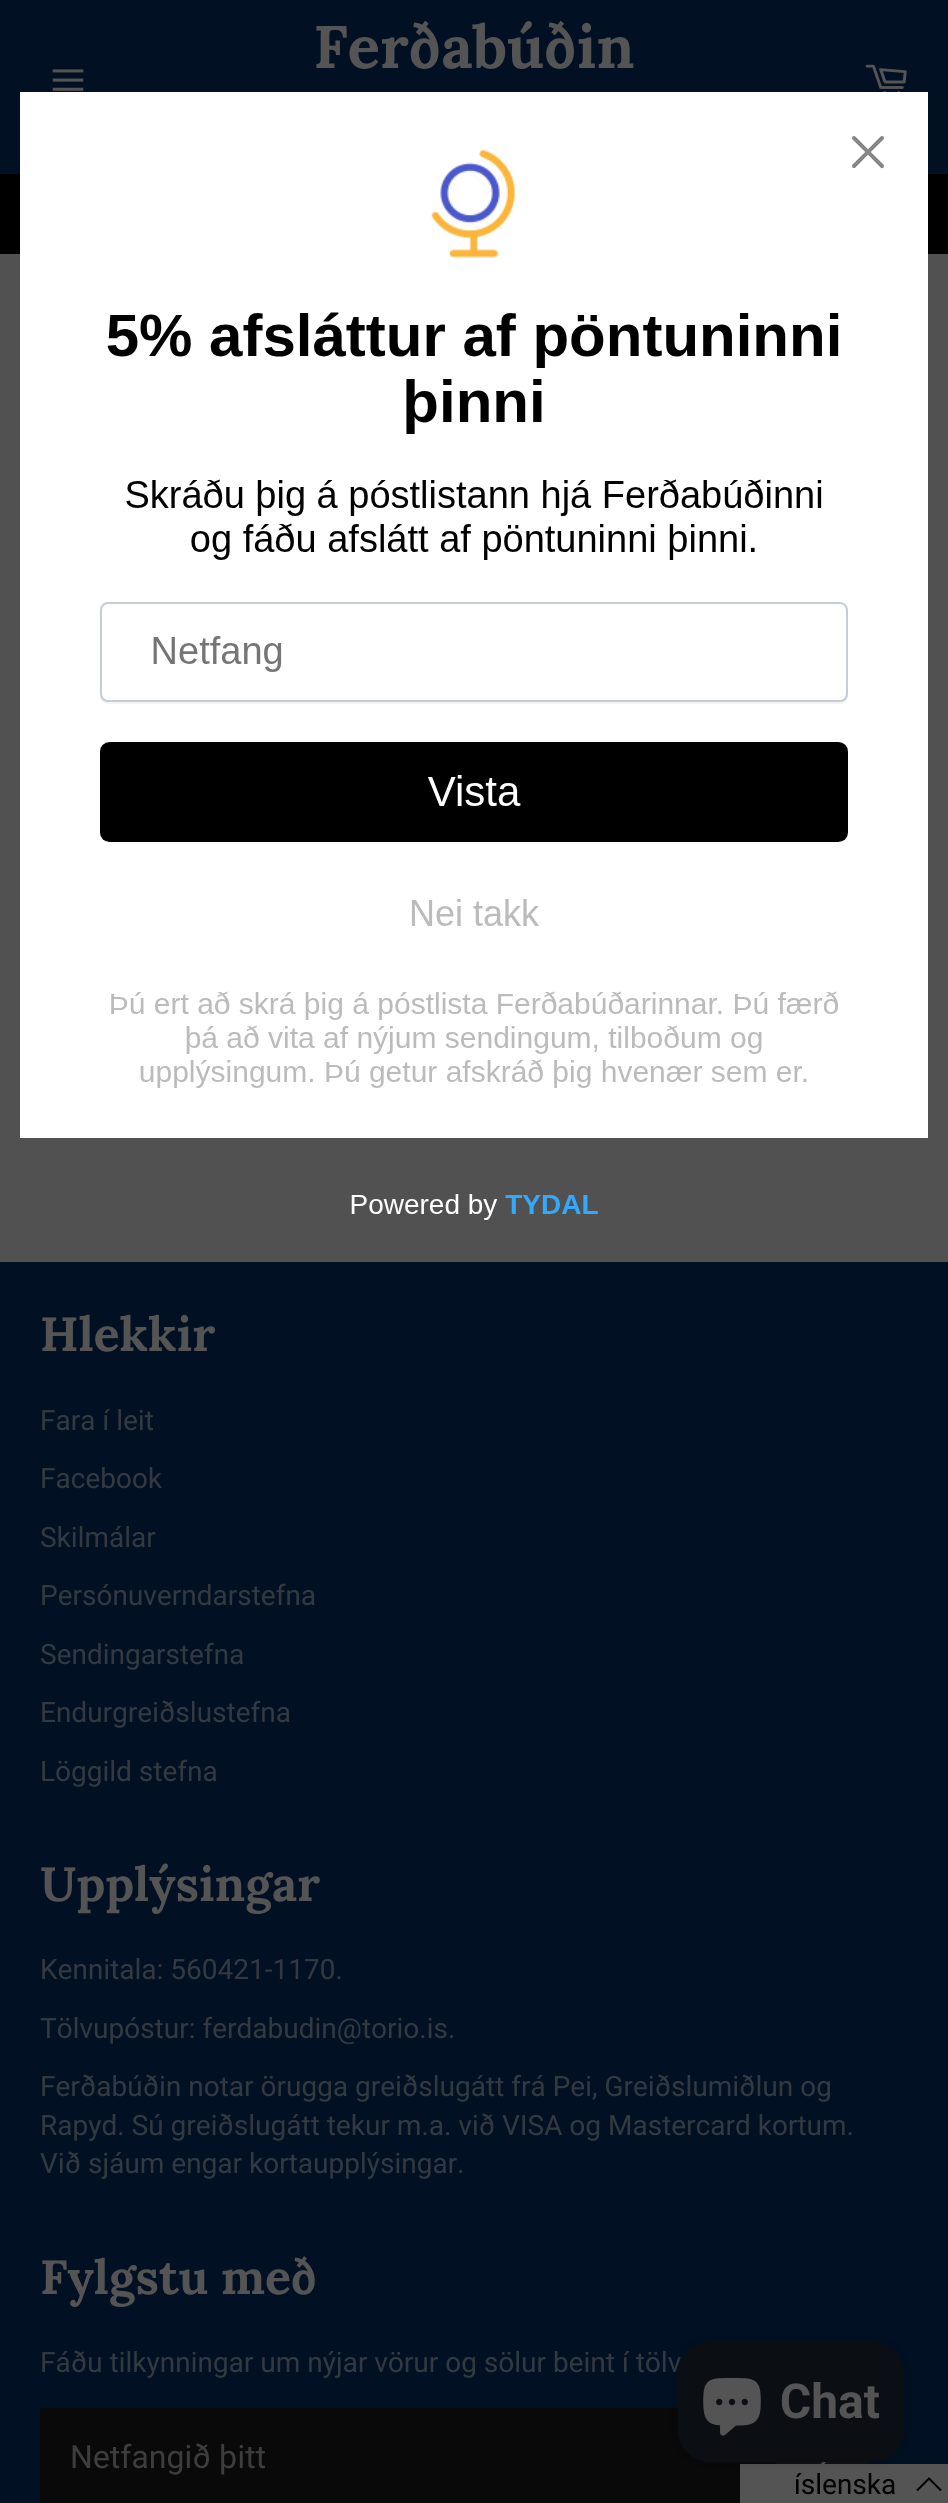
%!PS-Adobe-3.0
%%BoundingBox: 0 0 948 2503
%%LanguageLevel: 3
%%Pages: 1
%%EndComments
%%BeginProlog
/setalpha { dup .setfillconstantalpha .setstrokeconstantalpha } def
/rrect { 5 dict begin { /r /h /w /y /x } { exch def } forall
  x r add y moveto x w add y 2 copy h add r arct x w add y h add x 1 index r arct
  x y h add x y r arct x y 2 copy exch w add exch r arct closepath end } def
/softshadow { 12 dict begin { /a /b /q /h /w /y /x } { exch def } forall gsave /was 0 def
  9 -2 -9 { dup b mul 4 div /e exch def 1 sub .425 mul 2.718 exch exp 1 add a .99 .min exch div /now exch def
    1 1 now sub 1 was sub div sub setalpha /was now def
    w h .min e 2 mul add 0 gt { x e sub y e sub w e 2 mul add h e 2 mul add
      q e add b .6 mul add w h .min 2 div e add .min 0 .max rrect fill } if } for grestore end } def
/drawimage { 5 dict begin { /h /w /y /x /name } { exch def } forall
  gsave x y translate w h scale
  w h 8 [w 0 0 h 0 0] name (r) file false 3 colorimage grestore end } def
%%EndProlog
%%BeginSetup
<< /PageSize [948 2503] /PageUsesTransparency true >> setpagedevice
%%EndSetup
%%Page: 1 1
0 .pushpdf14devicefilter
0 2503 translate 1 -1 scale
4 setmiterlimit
0.969 setgray
0 0 948 2503 rectfill
0.008 0.192 0.404 setrgbcolor
0 0 948 174 rectfill
(images/2.raw) 52 69 32 22 drawimage
(images/3.raw) 865 64 42 28 drawimage
0 setgray
0 174 948 80 rectfill
0.008 0.192 0.404 setrgbcolor
0 1262 948 1241 rectfill
0.102 setgray
40 2408 736 95 rectfill
0.196 setgray
776 2462 92 2 rectfill
1 setgray
newpath 814.5 2448.5 moveto 816.5 2447 lineto 829.5 2459 lineto 816.5 2471 lineto 814.5 2469.5 lineto 826 2459 lineto closepath fill
740 2464 208 39 rectfill
0 setgray
2 setlinewidth
newpath 941 2490.5 moveto 929 2478.5 lineto 917 2490.5 lineto stroke
678 2342 226 120 32 5 0.15 softshadow
/Lora-Bold [60 0 0 -60 0 0] selectfont
1 setgray
313 68 moveto (Ferðabúðin) show
/Lora-Bold [48 0 0 -48 0 0] selectfont
40 1351 moveto (Hlekkir) show
/Roboto-Regular [28 0 0 -28 0 0] selectfont
0.604 0.678 0.761 setrgbcolor
40 1430 moveto (Fara í leit) show
40 1488 moveto (Facebook) show
40 1547 moveto (Skilmálar) show
40 1605 moveto (Persónuverndarstefna) show
40 1664 moveto (Sendingarstefna) show
40 1722 moveto (Endurgreiðslustefna) show
40 1781 moveto (Löggild stefna) show
/Lora-Bold [48 0 0 -48 0 0] selectfont
1 setgray
40 1901 moveto (Upplýsingar) show
/Roboto-Regular [28 0 0 -28 0 0] selectfont
0.604 0.678 0.761 setrgbcolor
40 1979 moveto (Kennitala: 560421-1170.) show
40 2038 moveto (Tölvupóstur: ferdabudin@torio.is.) show
40 2096 moveto (Ferðabúðin notar örugga greiðslugátt frá Pei, Greiðslumiðlun og) show
40 2135 moveto (Rapyd. Sú greiðslugátt tekur m.a. við VISA og Mastercard kortum.) show
40 2173 moveto (Við sjáum engar kortaupplýsingar.) show
/Lora-Bold [48 0 0 -48 0 0] selectfont
1 setgray
40 2294 moveto (Fylgstu með) show
/Roboto-Regular [28 0 0 -28 0 0] selectfont
0.604 0.678 0.761 setrgbcolor
40 2372 moveto (Fáðu tilkynningar um nýjar vörur og sölur beint í tölv) show
/Roboto-Regular [32 0 0 -32 0 0] selectfont
0.729 setgray
70 2468 moveto (Netfangið þitt) show
0.125 0.165 0.212 setrgbcolor
678 2342 226 120 32 rrect fill
(images/4.raw) 703 2378 58 58 drawimage
/Roboto-Bold [48 0 0 -48 0 0] selectfont
1 setgray
780 2418 moveto (Chat) show
/Roboto-Regular [28 0 0 -28 0 0] selectfont
0 setgray
794 2494 moveto (íslenska) show
(images/1.raw) 0 0 948 2503 drawimage
.poppdf14devicefilter showpage
%%EOF
